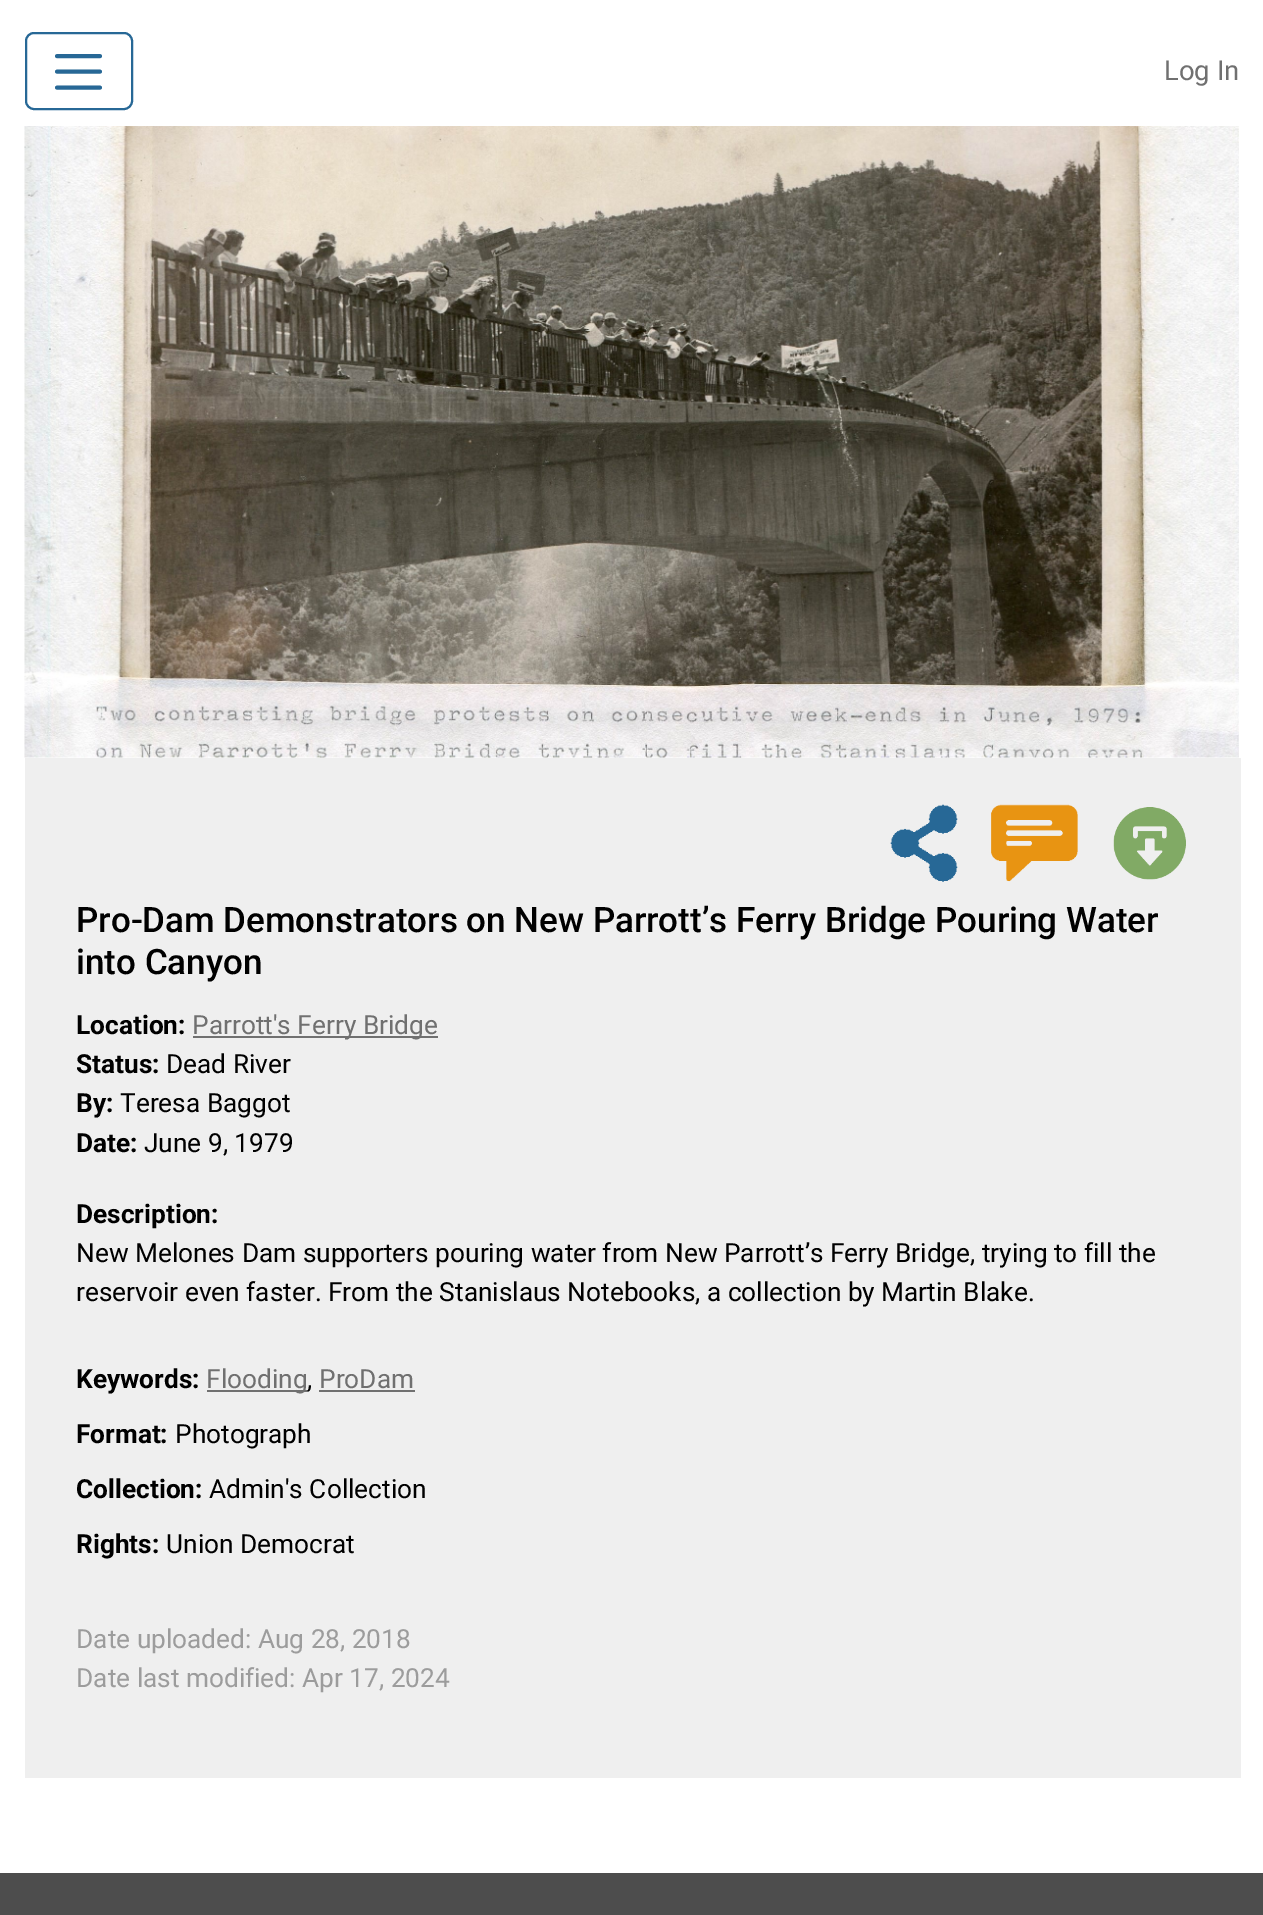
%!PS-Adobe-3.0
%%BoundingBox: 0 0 1263 1915
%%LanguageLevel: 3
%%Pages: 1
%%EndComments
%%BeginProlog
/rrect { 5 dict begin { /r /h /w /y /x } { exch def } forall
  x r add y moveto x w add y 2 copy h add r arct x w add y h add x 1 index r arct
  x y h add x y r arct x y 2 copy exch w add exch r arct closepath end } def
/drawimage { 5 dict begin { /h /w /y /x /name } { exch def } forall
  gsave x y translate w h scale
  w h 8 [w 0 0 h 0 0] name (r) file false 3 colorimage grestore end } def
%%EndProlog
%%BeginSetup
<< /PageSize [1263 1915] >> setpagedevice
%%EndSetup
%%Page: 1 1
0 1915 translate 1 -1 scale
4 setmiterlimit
1 setgray
0 0 1263 1915 rectfill
0.153 0.408 0.588 setrgbcolor
2 setlinewidth
26 33 106 76 8 rrect stroke
3.9 setlinewidth
1 setlinecap
newpath 57 56 moveto 100 56 lineto 57 71.5 moveto 100 71.5 lineto 57 87.5 moveto 100 87.5 lineto stroke
(images/1.raw) 24 126 1215 632 drawimage
0.937 setgray
25 758 1216 1020 rectfill
(images/2.raw) 890 804 68 78 drawimage
(images/3.raw) 991 804 87 78 drawimage
(images/4.raw) 1113 807 73 73 drawimage
0.439 setgray
193 1036 245 2 rectfill
207 1390 101 2 rectfill
319 1390 96 2 rectfill
0.302 setgray
0 1873 1263 42 rectfill
/Roboto-Regular [27.5 0 0 -27.5 0 0] selectfont
0.439 setgray
1164 80 moveto (Log In) show
/Roboto-Medium [35 0 0 -35 0 0] selectfont
0 setgray
76 932 moveto (Pro-Dam Demonstrators on New Parrott’s Ferry Bridge Pouring Water) show
76 974 moveto (into Canyon) show
/Roboto-Bold [26.25 0 0 -26.25 0 0] selectfont
76 1034 moveto (Location:) show
/Roboto-Regular [26.25 0 0 -26.25 0 0] selectfont
0.439 setgray
192 1034 moveto (Parrott's Ferry Bridge) show
/Roboto-Bold [26.25 0 0 -26.25 0 0] selectfont
0 setgray
76 1073 moveto (Status:) show
/Roboto-Regular [26.25 0 0 -26.25 0 0] selectfont
166 1073 moveto (Dead River) show
/Roboto-Bold [26.25 0 0 -26.25 0 0] selectfont
76 1112 moveto (By:) show
/Roboto-Regular [26.25 0 0 -26.25 0 0] selectfont
120 1112 moveto (Teresa Baggot) show
/Roboto-Bold [26.25 0 0 -26.25 0 0] selectfont
76 1152 moveto (Date:) show
/Roboto-Regular [26.25 0 0 -26.25 0 0] selectfont
144 1152 moveto (June 9, 1979) show
/Roboto-Bold [26.25 0 0 -26.25 0 0] selectfont
76 1223 moveto (Description:) show
/Roboto-Regular [26.25 0 0 -26.25 0 0] selectfont
76 1262 moveto (New Melones Dam supporters pouring water from New Parrott’s Ferry Bridge, trying to fill the) show
76 1301 moveto (reservoir even faster. From the Stanislaus Notebooks, a collection by Martin Blake.) show
/Roboto-Bold [26.25 0 0 -26.25 0 0] selectfont
76 1388 moveto (Keywords:) show
/Roboto-Regular [26.25 0 0 -26.25 0 0] selectfont
0.439 setgray
206 1388 moveto (Flooding) show
0 setgray
307 1388 moveto (,) show
0.439 setgray
319 1388 moveto (ProDam) show
/Roboto-Bold [26.25 0 0 -26.25 0 0] selectfont
0 setgray
76 1443 moveto (Format:) show
/Roboto-Regular [26.25 0 0 -26.25 0 0] selectfont
175 1443 moveto (Photograph) show
/Roboto-Bold [26.25 0 0 -26.25 0 0] selectfont
76 1498 moveto (Collection:) show
/Roboto-Regular [26.25 0 0 -26.25 0 0] selectfont
209 1498 moveto (Admin's Collection) show
/Roboto-Bold [26.25 0 0 -26.25 0 0] selectfont
76 1553 moveto (Rights:) show
/Roboto-Regular [26.25 0 0 -26.25 0 0] selectfont
166 1553 moveto (Union Democrat) show
0.612 setgray
76 1648 moveto (Date uploaded: Aug 28, 2018) show
76 1687 moveto (Date last modified: Apr 17, 2024) show
showpage
%%EOF
